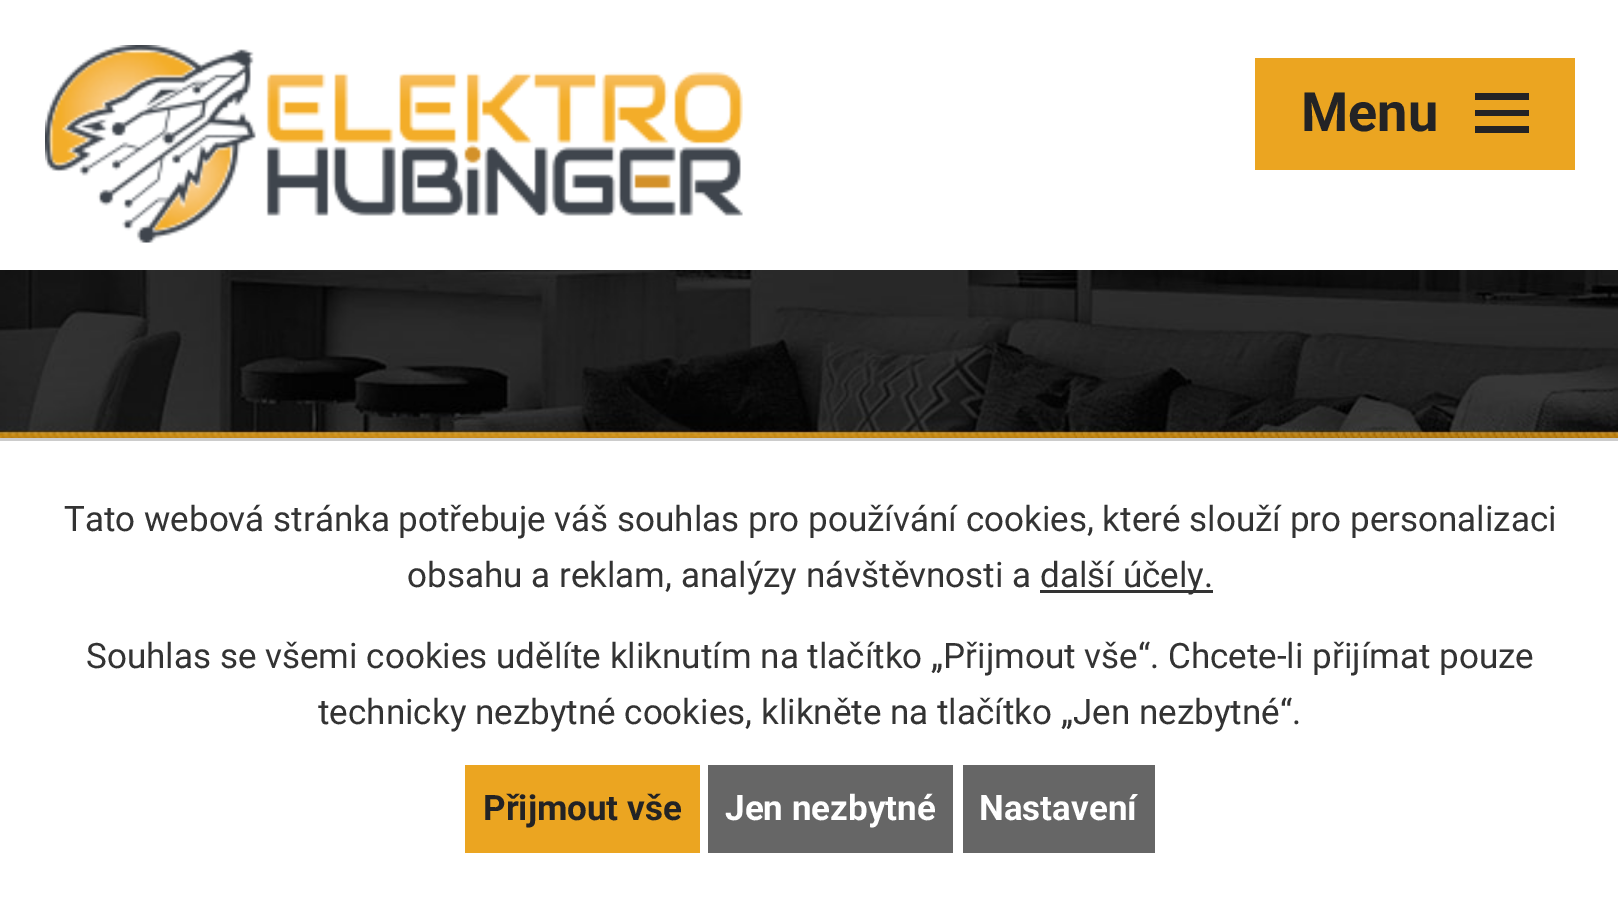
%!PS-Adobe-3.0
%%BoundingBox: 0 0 1618 922
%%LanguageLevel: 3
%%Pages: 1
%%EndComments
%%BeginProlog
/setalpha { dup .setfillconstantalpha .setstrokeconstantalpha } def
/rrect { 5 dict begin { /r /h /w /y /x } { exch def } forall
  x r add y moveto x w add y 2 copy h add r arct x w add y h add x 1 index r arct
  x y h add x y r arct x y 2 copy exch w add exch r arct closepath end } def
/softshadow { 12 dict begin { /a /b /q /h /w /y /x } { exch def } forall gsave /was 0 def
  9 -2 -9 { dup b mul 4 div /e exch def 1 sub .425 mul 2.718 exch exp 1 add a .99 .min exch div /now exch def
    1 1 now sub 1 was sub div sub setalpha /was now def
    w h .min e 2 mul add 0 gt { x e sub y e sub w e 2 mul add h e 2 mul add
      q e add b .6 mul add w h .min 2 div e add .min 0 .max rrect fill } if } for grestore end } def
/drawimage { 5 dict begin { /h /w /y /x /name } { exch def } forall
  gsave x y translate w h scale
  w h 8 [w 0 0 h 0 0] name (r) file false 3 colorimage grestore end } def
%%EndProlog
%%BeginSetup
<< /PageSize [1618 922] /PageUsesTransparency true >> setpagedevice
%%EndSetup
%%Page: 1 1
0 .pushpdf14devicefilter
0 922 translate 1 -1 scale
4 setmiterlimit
1 setgray
0 0 1618 922 rectfill
(images/1.raw) 0 270 1618 168 drawimage
(images/2.raw) 45 45 698 198 drawimage
0.922 0.647 0.129 setrgbcolor
1255 58 320 112 rectfill
0.137 0.137 0.145 setrgbcolor
newpath 1475 133 moveto 1475 126 lineto 1529 126 lineto 1529 133 lineto closepath 1475 93 moveto 1529 93 lineto 1529 100 lineto 1475 100 lineto closepath 1475 116 moveto 1475 110 lineto 1529 110 lineto 1529 116 lineto closepath fill
0 setgray
0 438 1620 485 0 6 0.2 softshadow
1 setgray
0 441 1618 481 rectfill
0.8 setgray
0 438 1618 3 rectfill
0.2 setgray
1040 590 173 3 rectfill
0.922 0.647 0.129 setrgbcolor
465 765 235 88 rectfill
0.4 setgray
708 765 245 88 rectfill
963 765 192 88 rectfill
/Roboto-Bold [54 0 0 -54 0 0] selectfont
0.137 0.137 0.145 setrgbcolor
1301 131 moveto (Menu) show
/Roboto-Regular [35 0 0 -35 0 0] selectfont
0.2 setgray
64 531 moveto (Tato webová stránka potřebuje váš souhlas pro používání cookies, které slouží pro personalizaci) show
407 587 moveto (obsahu a reklam, analýzy návštěvnosti a) show
1040 587 moveto (další účely.) show
86 668 moveto (Souhlas se všemi cookies udělíte kliknutím na tlačítko „Přijmout vše“. Chcete-li přijímat pouze) show
318 724 moveto (technicky nezbytné cookies, klikněte na tlačítko „Jen nezbytné“.) show
/Roboto-Bold [35 0 0 -35 0 0] selectfont
0.137 0.137 0.145 setrgbcolor
483 820 moveto (Přijmout vše) show
1 setgray
725 820 moveto (Jen nezbytné) show
979 820 moveto (Nastavení) show
.poppdf14devicefilter showpage
%%EOF
